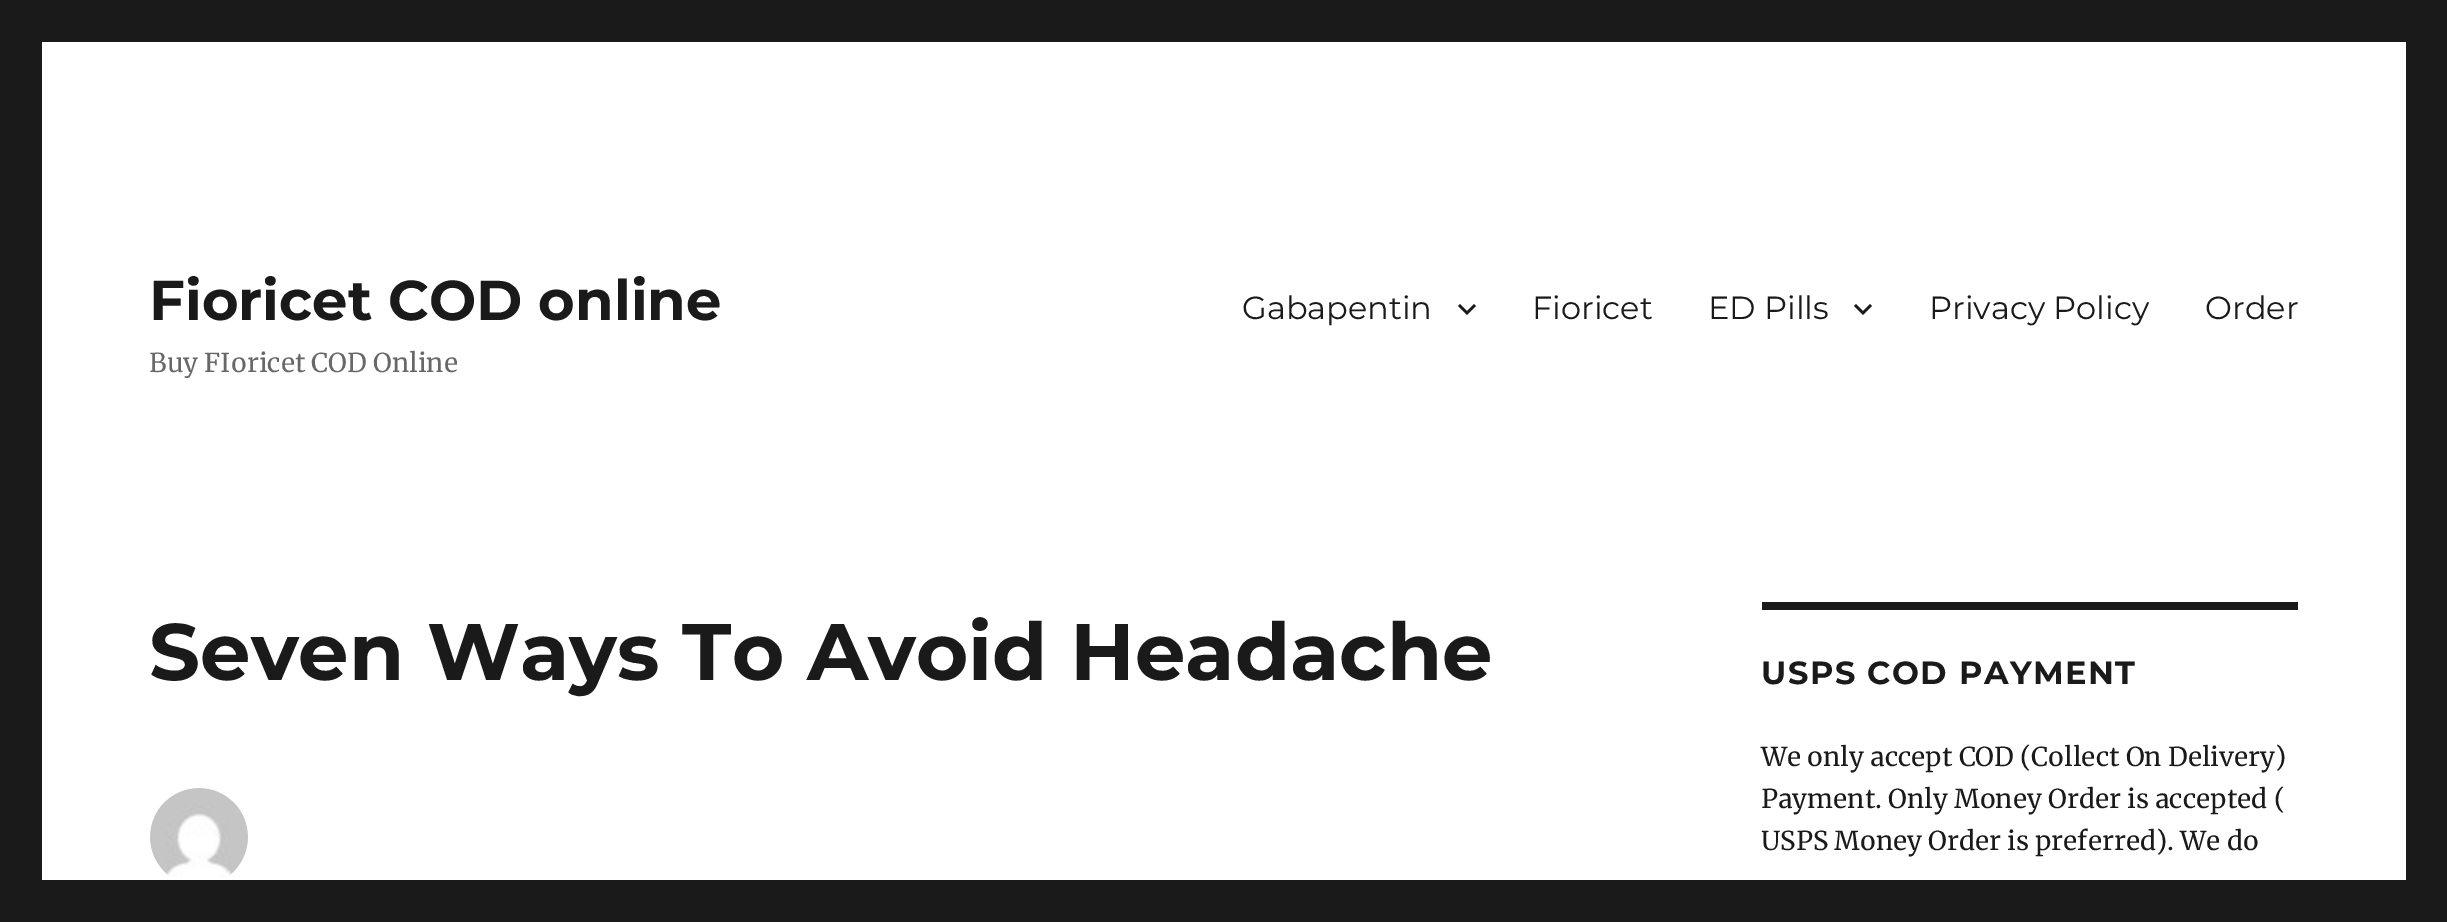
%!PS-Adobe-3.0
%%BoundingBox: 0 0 2447 922
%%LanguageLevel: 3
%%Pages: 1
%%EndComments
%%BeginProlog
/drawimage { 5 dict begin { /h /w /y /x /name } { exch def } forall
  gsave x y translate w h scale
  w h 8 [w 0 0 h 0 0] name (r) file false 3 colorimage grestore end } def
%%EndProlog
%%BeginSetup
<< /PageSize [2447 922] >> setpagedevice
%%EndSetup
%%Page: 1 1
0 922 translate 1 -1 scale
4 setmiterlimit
0.102 setgray
0 0 2447 922 rectfill
1 setgray
42 42 2364 838 rectfill
0.102 setgray
newpath 1474 304 moveto 1476 306 lineto 1467 315 lineto 1458 306 lineto 1460 304 lineto 1467 311 lineto closepath fill
newpath 1870 304 moveto 1872 306 lineto 1863 315 lineto 1854 306 lineto 1856 304 lineto 1863 311 lineto closepath fill
(images/1.raw) 150 788 98 89 drawimage
1762 602 536 8 rectfill
/Montserrat-Thin [56 0 0 -56 0 0] selectfont
149 320 moveto (Fioricet COD online) show
gsave
150 266 572 112 rectclip
/Merriweather-Regular [26 0 0 -26 0 0] selectfont
0.408 setgray
149 372 moveto (Buy FIoricet COD Online) show
grestore
/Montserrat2-Thin [32 0 0 -32 0 0] selectfont
1242 319 moveto (Gabapentin) show
1532 319 moveto (Fioricet) show
1708 319 moveto (ED Pills) show
1929 319 moveto (Privacy Policy) show
2205 319 moveto (Order) show
/Montserrat-Thin [80 0 0 -80 0 0] selectfont
149 680 moveto (Seven Ways To Avoid Headache) show
/Montserrat-Thin [32 0 0 -32 0 0] selectfont
1761 684 moveto 1.5 0 (USPS COD PAYMENT) ashow
/Merriweather-Regular [26 0 0 -26 0 0] selectfont
1761 766 moveto (We only accept COD \(Collect On Delivery\)) show
1761 808 moveto (Payment. Only Money Order is accepted \() show
1761 850 moveto (USPS Money Order is preferred\). We do) show
showpage
%%EOF
